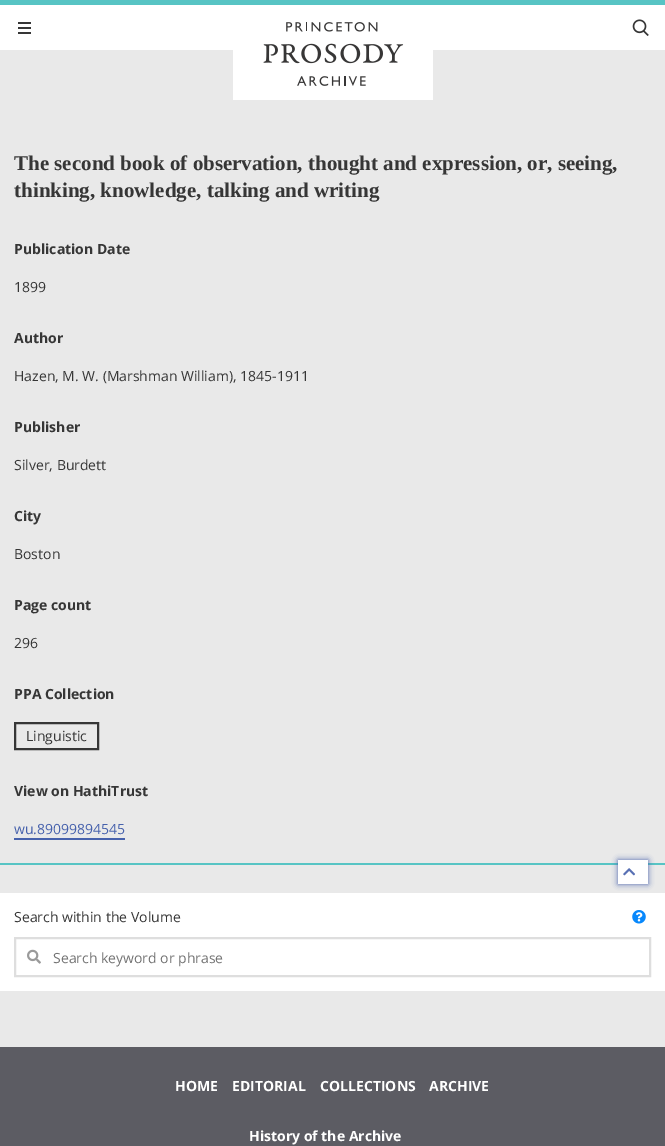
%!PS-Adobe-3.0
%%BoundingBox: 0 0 665 1146
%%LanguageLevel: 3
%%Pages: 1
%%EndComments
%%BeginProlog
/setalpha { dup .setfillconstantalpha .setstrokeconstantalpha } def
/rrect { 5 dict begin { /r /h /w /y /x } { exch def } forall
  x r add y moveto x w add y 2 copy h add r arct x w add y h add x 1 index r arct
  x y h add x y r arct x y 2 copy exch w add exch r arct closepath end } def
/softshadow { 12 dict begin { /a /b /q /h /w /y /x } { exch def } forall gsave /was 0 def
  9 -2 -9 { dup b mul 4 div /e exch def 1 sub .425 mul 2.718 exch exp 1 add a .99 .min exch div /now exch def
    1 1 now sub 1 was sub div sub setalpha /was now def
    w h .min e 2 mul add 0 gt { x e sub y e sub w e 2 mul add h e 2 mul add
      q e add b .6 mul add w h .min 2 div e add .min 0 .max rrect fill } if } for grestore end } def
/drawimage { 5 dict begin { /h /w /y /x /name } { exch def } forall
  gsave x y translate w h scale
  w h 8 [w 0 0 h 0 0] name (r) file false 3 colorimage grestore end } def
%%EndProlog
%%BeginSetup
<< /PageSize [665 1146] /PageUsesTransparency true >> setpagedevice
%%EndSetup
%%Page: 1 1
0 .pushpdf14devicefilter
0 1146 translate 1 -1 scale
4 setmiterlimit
0.914 setgray
0 0 665 1146 rectfill
1 setgray
0 5 665 45 rectfill
0.341 0.769 0.769 setrgbcolor
0 0 665 5 rectfill
0.212 setgray
18 22 13 2 rectfill
18 27 13 2 rectfill
18 32 13 2 rectfill
1 setgray
233 50 200 50 rectfill
(images/1.raw) 263 22 141 64 drawimage
(images/2.raw) 632 19 17 17 drawimage
0.341 0.769 0.769 setrgbcolor
0 863 665 2 rectfill
0.212 setgray
2 setlinewidth
15 723 83 26 rectstroke
0.275 0.38 0.675 setrgbcolor
14 838 111 2 rectfill
1 setgray
0 893 665 98 rectfill
0.275 0.38 0.675 setrgbcolor
618 860 30 24 0 3 1 softshadow
1 setgray
618 860 30 24 rectfill
(images/3.raw) 623 868 12 8 drawimage
0.871 setgray
15 938 635 38 rectstroke
(images/4.raw) 27 949 14 15 drawimage
(images/5.raw) 632 910 14 14 drawimage
0.361 0.361 0.388 setrgbcolor
0 1047 665 99 rectfill
/LiberationSerif-Bold [21 0 0 -21 0 0] selectfont
0.212 setgray
14 170 moveto (The second book of observation, thought and expression, or, seeing,) show
14 197 moveto (thinking, knowledge, talking and writing) show
/OpenSans-Bold [14 0 0 -14 0 0] selectfont
14 254 moveto (Publication Date) show
/OpenSans-Regular [14 0 0 -14 0 0] selectfont
14 292 moveto (1899) show
/OpenSans-Bold [14 0 0 -14 0 0] selectfont
14 343 moveto (Author) show
/OpenSans-Regular [14 0 0 -14 0 0] selectfont
14 381 moveto (Hazen, M. W. \(Marshman William\), 1845-1911) show
/OpenSans-Bold [14 0 0 -14 0 0] selectfont
14 432 moveto (Publisher) show
/OpenSans-Regular [14 0 0 -14 0 0] selectfont
14 470 moveto (Silver, Burdett) show
/OpenSans-Bold [14 0 0 -14 0 0] selectfont
14 521 moveto (City) show
/OpenSans-Regular [14 0 0 -14 0 0] selectfont
14 559 moveto (Boston) show
/OpenSans-Bold [14 0 0 -14 0 0] selectfont
14 610 moveto (Page count) show
/OpenSans-Regular [14 0 0 -14 0 0] selectfont
14 648 moveto (296) show
/OpenSans-Bold [14 0 0 -14 0 0] selectfont
14 699 moveto (PPA Collection) show
/OpenSans-Regular [14 0 0 -14 0 0] selectfont
26 741 moveto (Linguistic) show
/OpenSans-Bold [14 0 0 -14 0 0] selectfont
14 796 moveto (View on HathiTrust) show
/OpenSans-Regular [14 0 0 -14 0 0] selectfont
0.275 0.38 0.675 setrgbcolor
14 834 moveto (wu.89099894545) show
0.212 setgray
14 922 moveto (Search within the Volume) show
0.451 setgray
53 963 moveto (Search keyword or phrase) show
/OpenSans-Bold [14 0 0 -14 0 0] selectfont
1 setgray
175 1091 moveto (HOME) show
232 1091 moveto (EDITORIAL) show
320 1091 moveto (COLLECTIONS) show
429 1091 moveto (ARCHIVE) show
249 1141 moveto (History of the Archive) show
.poppdf14devicefilter showpage
%%EOF
